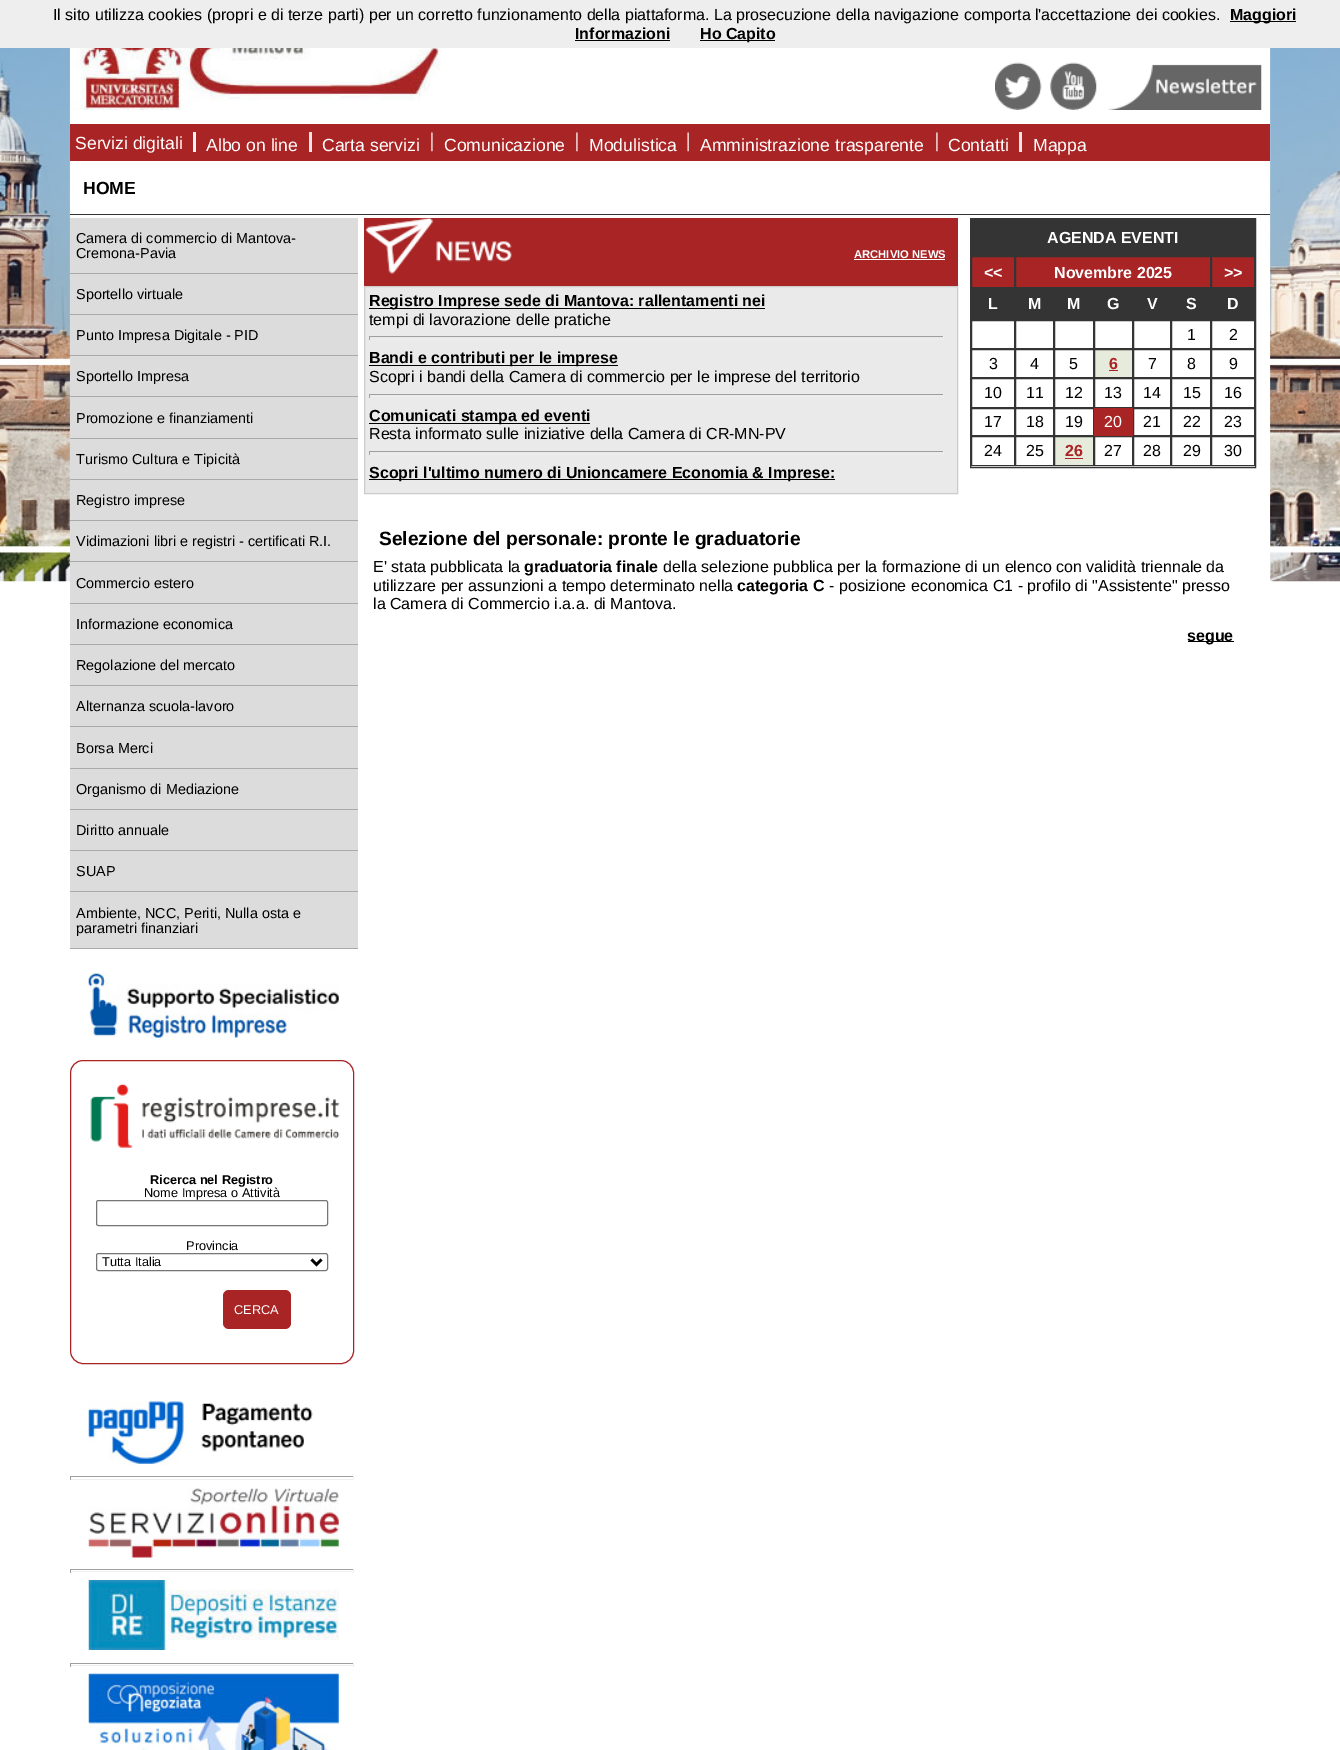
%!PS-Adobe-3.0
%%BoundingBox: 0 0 1340 1750
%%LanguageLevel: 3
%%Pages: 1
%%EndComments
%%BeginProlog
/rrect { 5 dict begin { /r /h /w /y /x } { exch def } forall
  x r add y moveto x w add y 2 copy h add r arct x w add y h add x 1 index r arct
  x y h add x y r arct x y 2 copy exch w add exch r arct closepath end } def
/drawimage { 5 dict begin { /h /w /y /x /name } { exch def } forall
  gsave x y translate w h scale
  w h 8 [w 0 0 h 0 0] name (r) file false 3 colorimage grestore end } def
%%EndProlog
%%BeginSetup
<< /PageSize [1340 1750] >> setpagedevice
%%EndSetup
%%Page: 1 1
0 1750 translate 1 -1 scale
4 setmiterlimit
1 setgray
0 0 1340 1750 rectfill
(images/1.raw) 0 48 1340 534 drawimage
0.933 setgray
0 0 1340 48 rectfill
0 setgray
1230 21 66 1 rectfill
575 40 95 1 rectfill
700 40 75 1 rectfill
1 setgray
70 48 1200 76 rectfill
(images/2.raw) 70 48 371 62 drawimage
(images/3.raw) 995 62 47 48 drawimage
(images/4.raw) 1050 62 47 48 drawimage
(images/5.raw) 1108 64 154 46 drawimage
0.663 0.141 0.145 setrgbcolor
70 124 1200 37 rectfill
0.98 0.949 0.949 setrgbcolor
193 132 3 20 rectfill
0.957 0.89 0.89 setrgbcolor
309 132 3 20 rectfill
(images/6.raw) 431 132 2 20 drawimage
(images/6.raw) 576 132 2 20 drawimage
(images/7.raw) 687 132 2 20 drawimage
(images/6.raw) 936 132 2 20 drawimage
1019 132 3 20 rectfill
1 setgray
70 161 1200 53 rectfill
0.2 setgray
70 214 1200 1 rectfill
1 setgray
70 215 1200 367 rectfill
0.863 setgray
70 218 288 55 rectfill
0.667 setgray
70 273 288 1 rectfill
0.863 setgray
70 274 288 40 rectfill
0.667 setgray
70 314 288 1 rectfill
0.863 setgray
70 315 288 40 rectfill
0.667 setgray
70 355 288 1 rectfill
0.863 setgray
70 356 288 82 rectfill
0.667 setgray
70 396 288 1 rectfill
70 438 288 1 rectfill
0.863 setgray
70 439 288 40 rectfill
0.667 setgray
70 479 288 1 rectfill
0.863 setgray
70 480 288 40 rectfill
0.667 setgray
70 520 288 1 rectfill
0.863 setgray
70 521 288 82 rectfill
0.667 setgray
70 561 288 1 rectfill
70 603 288 1 rectfill
0.863 setgray
70 604 288 40 rectfill
0.667 setgray
70 644 288 1 rectfill
0.863 setgray
70 645 288 40 rectfill
0.667 setgray
70 685 288 1 rectfill
0.863 setgray
70 686 288 82 rectfill
0.667 setgray
70 726 288 1 rectfill
70 768 288 1 rectfill
0.863 setgray
70 769 288 40 rectfill
0.667 setgray
70 809 288 1 rectfill
0.863 setgray
70 810 288 40 rectfill
0.667 setgray
70 850 288 1 rectfill
0.863 setgray
70 851 288 97 rectfill
0.667 setgray
70 891 288 1 rectfill
70 948 288 1 rectfill
(images/8.raw) 88 973 251 65 drawimage
0.663 0.141 0.145 setrgbcolor
70.5 1060.5 283 303 12.5 rrect stroke
(images/9.raw) 90 1084 250 64 drawimage
0.463 setgray
96.5 1200.5 231 25 2 rrect stroke
96.5 1253.5 231 17 2 rrect stroke
0 setgray
2.5 setlinewidth
newpath 311.5 1259.5 moveto 316.5 1264.5 lineto 321.5 1259.5 lineto stroke
0.663 0.141 0.145 setrgbcolor
223 1290 68 39 6 rrect fill
(images/10.raw) 88 1401 225 64 drawimage
0.624 setgray
70 1476 284 1 rectfill
0.933 setgray
353 1476 1 4 rectfill
70 1479 284 1 rectfill
0.624 setgray
70 1476 1 4 rectfill
(images/11.raw) 88 1488 251 70 drawimage
70 1569 284 1 rectfill
0.933 setgray
353 1569 1 4 rectfill
70 1571 284 1 rectfill
0.624 setgray
70 1569 1 4 rectfill
(images/12.raw) 88 1580 251 70 drawimage
70 1663 284 1 rectfill
0.933 setgray
353 1663 1 4 rectfill
70 1665 284 1 rectfill
0.624 setgray
70 1663 1 4 rectfill
(images/13.raw) 88 1673 251 77 drawimage
0.663 0.141 0.145 setrgbcolor
364 218 594 68 rectfill
(images/14.raw) 366 218 146 56 drawimage
1 setgray
854 259 91 1 rectfill
0.918 setgray
newpath 364.5 286.5 moveto 957.5 286.5 lineto 957.5 493.5 lineto 364.5 493.5 lineto closepath gsave fill grestore
0.8 setgray
1 setlinewidth
stroke
0 setgray
369 308 396 1 rectfill
0.624 setgray
369 336 575 1 rectfill
0.933 setgray
943 336 1 4 rectfill
369 339 575 1 rectfill
0.624 setgray
369 336 1 4 rectfill
0 setgray
369 365 249 1 rectfill
0.624 setgray
369 394 575 1 rectfill
0.933 setgray
943 394 1 4 rectfill
369 396 575 1 rectfill
0.624 setgray
369 394 1 4 rectfill
0 setgray
369 423 221 1 rectfill
0.624 setgray
369 451 575 1 rectfill
0.933 setgray
943 451 1 4 rectfill
369 454 575 1 rectfill
0.624 setgray
369 451 1 4 rectfill
0 setgray
369 479 466 1 rectfill
0.204 setgray
970.5 218.5 285 249 rectstroke
971 219 284 37 rectfill
0.663 0.141 0.145 setrgbcolor
newpath 971.5 256.5 moveto 1014.5 256.5 lineto 1014.5 287.5 lineto 971.5 287.5 lineto closepath gsave fill grestore
0.204 setgray
stroke
0.663 0.141 0.145 setrgbcolor
newpath 1015.5 256.5 moveto 1210.5 256.5 lineto 1210.5 287.5 lineto 1015.5 287.5 lineto closepath gsave fill grestore
0.204 setgray
stroke
0.663 0.141 0.145 setrgbcolor
newpath 1211.5 256.5 moveto 1254.5 256.5 lineto 1254.5 287.5 lineto 1211.5 287.5 lineto closepath gsave fill grestore
0.204 setgray
stroke
971 288 284 32 rectfill
971.5 320.5 43 28 rectstroke
1015.5 320.5 38 28 rectstroke
1054.5 320.5 39 28 rectstroke
1094.5 320.5 38 28 rectstroke
1133.5 320.5 37 28 rectstroke
1171.5 320.5 39 28 rectstroke
1211.5 320.5 43 28 rectstroke
971.5 349.5 43 28 rectstroke
1015.5 349.5 38 28 rectstroke
1054.5 349.5 39 28 rectstroke
0.906 0.922 0.863 setrgbcolor
newpath 1094.5 349.5 moveto 1132.5 349.5 lineto 1132.5 377.5 lineto 1094.5 377.5 lineto closepath gsave fill grestore
0.204 setgray
stroke
0.663 0.141 0.145 setrgbcolor
1109 370 9 1 rectfill
0.204 setgray
1133.5 349.5 37 28 rectstroke
1171.5 349.5 39 28 rectstroke
1211.5 349.5 43 28 rectstroke
971.5 378.5 43 29 rectstroke
1015.5 378.5 38 29 rectstroke
1054.5 378.5 39 29 rectstroke
1094.5 378.5 38 29 rectstroke
1133.5 378.5 37 29 rectstroke
1171.5 378.5 39 29 rectstroke
1211.5 378.5 43 29 rectstroke
971.5 408.5 43 27 rectstroke
1015.5 408.5 38 27 rectstroke
1054.5 408.5 39 27 rectstroke
0.663 0.141 0.145 setrgbcolor
1094 408 39 28 rectfill
0.204 setgray
1133.5 408.5 37 27 rectstroke
1171.5 408.5 39 27 rectstroke
1211.5 408.5 43 27 rectstroke
971.5 436.5 43 29 rectstroke
1015.5 436.5 38 29 rectstroke
0.906 0.922 0.863 setrgbcolor
newpath 1054.5 436.5 moveto 1093.5 436.5 lineto 1093.5 465.5 lineto 1054.5 465.5 lineto closepath gsave fill grestore
0.204 setgray
stroke
0.663 0.141 0.145 setrgbcolor
1065 458 18 1 rectfill
0.204 setgray
1094.5 436.5 38 29 rectstroke
1133.5 436.5 37 29 rectstroke
1171.5 436.5 39 29 rectstroke
1211.5 436.5 43 29 rectstroke
0 setgray
1188 641 46 1 rectfill
/LiberationSans-Regular [16 0 0 -16 0 0] selectfont
53 20 moveto (Il sito utilizza cookies \(propri e di terze parti\) per un corretto funzionamento della piattaforma. La prosecuzione della navigazione comporta l'accettazione dei cookies.) show
/LiberationSans-Bold [16 0 0 -16 0 0] selectfont
1230 20 moveto (Maggiori) show
575 39 moveto (Informazioni) show
700 39 moveto (Ho Capito) show
/LiberationSans-Regular [17.6 0 0 -17.6 0 0] selectfont
1 setgray
75 149 moveto (Servizi digitali) show
206 151 moveto (Albo on line) show
322 151 moveto (Carta servizi) show
444 151 moveto (Comunicazione) show
589 151 moveto (Modulistica) show
700 151 moveto (Amministrazione trasparente) show
948 151 moveto (Contatti) show
1033 151 moveto (Mappa) show
/LiberationSans-Bold [17.6 0 0 -17.6 0 0] selectfont
0 setgray
83 194 moveto (HOME) show
/LiberationSans-Regular [14.4 0 0 -14.4 0 0] selectfont
76 243 moveto (Camera di commercio di Mantova-) show
76 258 moveto (Cremona-Pavia) show
76 299 moveto (Sportello virtuale) show
76 340 moveto (Punto Impresa Digitale - PID) show
76 381 moveto (Sportello Impresa) show
76 423 moveto (Promozione e finanziamenti) show
76 464 moveto (Turismo Cultura e Tipicità) show
76 505 moveto (Registro imprese) show
76 546 moveto (Vidimazioni libri e registri - certificati R.I.) show
76 588 moveto (Commercio estero) show
76 629 moveto (Informazione economica) show
76 670 moveto (Regolazione del mercato) show
76 711 moveto (Alternanza scuola-lavoro) show
76 753 moveto (Borsa Merci) show
76 794 moveto (Organismo di Mediazione) show
76 835 moveto (Diritto annuale) show
76 876 moveto (SUAP) show
76 918 moveto (Ambiente, NCC, Periti, Nulla osta e) show
76 933 moveto (parametri finanziari) show
/LiberationSans-Bold [12.75 0 0 -12.75 0 0] selectfont
150 1184 moveto (Ricerca nel Registro) show
/LiberationSans-Regular [12.75 0 0 -12.75 0 0] selectfont
144 1197 moveto (Nome Impresa o Attività) show
186 1250 moveto (Provincia) show
102 1266 moveto (Tutta Italia) show
1 setgray
234 1314 moveto (CERCA) show
/LiberationSans-Bold [11.25 0 0 -11.25 0 0] selectfont
854 258 moveto (ARCHIVIO NEWS) show
/LiberationSans-Bold [16 0 0 -16 0 0] selectfont
0 setgray
369 306 moveto (Registro Imprese sede di Mantova: rallentamenti nei) show
/LiberationSans-Regular [16 0 0 -16 0 0] selectfont
369 325 moveto (tempi di lavorazione delle pratiche) show
/LiberationSans-Bold [16 0 0 -16 0 0] selectfont
369 363 moveto (Bandi e contributi per le imprese) show
/LiberationSans-Regular [16 0 0 -16 0 0] selectfont
369 382 moveto (Scopri i bandi della Camera di commercio per le imprese del territorio) show
/LiberationSans-Bold [16 0 0 -16 0 0] selectfont
369 421 moveto (Comunicati stampa ed eventi) show
/LiberationSans-Regular [16 0 0 -16 0 0] selectfont
369 439 moveto (Resta informato sulle iniziative della Camera di CR-MN-PV) show
/LiberationSans-Bold [16 0 0 -16 0 0] selectfont
369 478 moveto (Scopri l'ultimo numero di Unioncamere Economia & Imprese:) show
1 setgray
1047 243 moveto (AGENDA EVENTI) show
984 278 moveto (<<) show
1054 278 moveto (Novembre 2025) show
1224 278 moveto (>>) show
988 309 moveto (L) show
1028 309 moveto (M) show
1067 309 moveto (M) show
1107 309 moveto (G) show
1147 309 moveto (V) show
1186 309 moveto (S) show
1227 309 moveto (D) show
/LiberationSans-Regular [16 0 0 -16 0 0] selectfont
0 setgray
1187 340 moveto (1) show
1229 340 moveto (2) show
989 369 moveto (3) show
1030 369 moveto (4) show
1069 369 moveto (5) show
/LiberationSans-Bold [16 0 0 -16 0 0] selectfont
0.663 0.141 0.145 setrgbcolor
1109 369 moveto (6) show
/LiberationSans-Regular [16 0 0 -16 0 0] selectfont
0 setgray
1148 369 moveto (7) show
1187 369 moveto (8) show
1229 369 moveto (9) show
984 398 moveto (10) show
1026 398 moveto (11) show
1065 398 moveto (12) show
1104 398 moveto (13) show
1143 398 moveto (14) show
1183 398 moveto (15) show
1224 398 moveto (16) show
984 427 moveto (17) show
1026 427 moveto (18) show
1065 427 moveto (19) show
1 setgray
1104 427 moveto (20) show
0 setgray
1143 427 moveto (21) show
1183 427 moveto (22) show
1224 427 moveto (23) show
984 456 moveto (24) show
1026 456 moveto (25) show
/LiberationSans-Bold [16 0 0 -16 0 0] selectfont
0.663 0.141 0.145 setrgbcolor
1065 456 moveto (26) show
/LiberationSans-Regular [16 0 0 -16 0 0] selectfont
0 setgray
1104 456 moveto (27) show
1143 456 moveto (28) show
1183 456 moveto (29) show
1224 456 moveto (30) show
/LiberationSans-Bold [19.2 0 0 -19.2 0 0] selectfont
379 545 moveto (Selezione del personale: pronte le graduatorie) show
/LiberationSans-Regular [16 0 0 -16 0 0] selectfont
373 572 moveto (E' stata pubblicata la) show
/LiberationSans-Bold [16 0 0 -16 0 0] selectfont
524 572 moveto (graduatoria finale) show
/LiberationSans-Regular [16 0 0 -16 0 0] selectfont
663 572 moveto (della selezione pubblica per la formazione di un elenco con validità triennale da) show
373 591 moveto (utilizzare per assunzioni a tempo determinato nella) show
/LiberationSans-Bold [16 0 0 -16 0 0] selectfont
737 591 moveto (categoria C) show
/LiberationSans-Regular [16 0 0 -16 0 0] selectfont
829 591 moveto (- posizione economica C1 - profilo di "Assistente" presso) show
373 609 moveto (la Camera di Commercio i.a.a. di Mantova.) show
/LiberationSans-Bold [16 0 0 -16 0 0] selectfont
1187 641 moveto (segue) show
showpage
%%EOF
